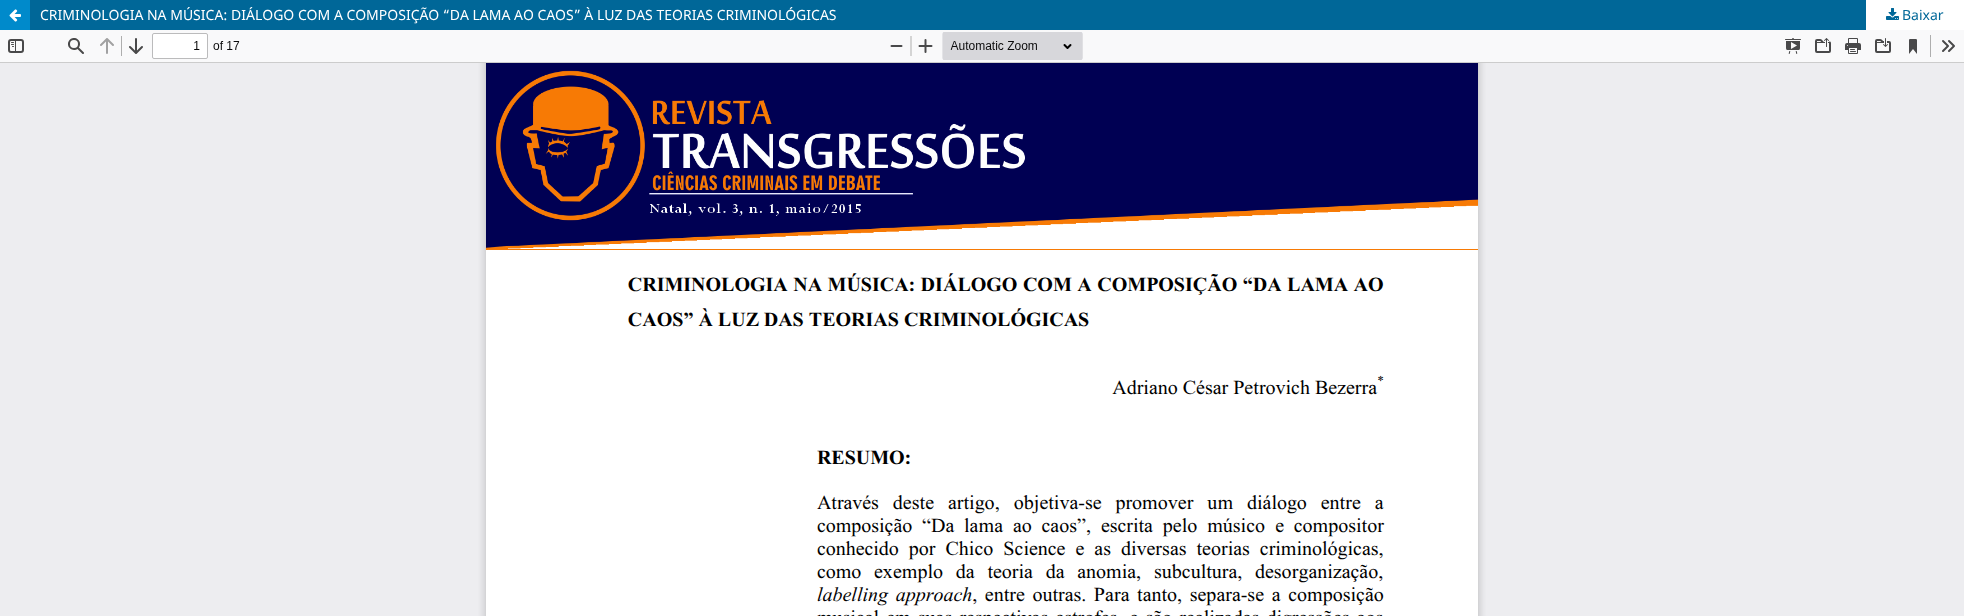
async function draw(canvas) {
  canvas.width = 1964;
  canvas.height = 616;
  const ctx = canvas.getContext('2d');
  ctx.miterLimit = 4;
  ctx.fontKerning = 'normal';
  function label(s, x, y, font, color) {
    ctx.font = font;
    ctx.fillStyle = color;
    ctx.fillText(s, x, y);
  }
  function rect(x, y, w, h, color) {
    ctx.fillStyle = color;
    ctx.fillRect(x, y, w, h);
  }
  async function image(src, x, y, w, h) {
    const img = new Image();
    img.src = src;
    await img.decode();
    ctx.drawImage(img, x, y, w, h);
  }

  rect(0, 0, 1964, 616, '#fff');
  rect(30, 0, 1836, 30, '#006798');
  rect(0, 0, 30, 30, '#008acb');
  await image('assets/img1.png', 9, 9, 12, 13);
  label('CRIMINOLOGIA NA MÚSICA: DIÁLOGO COM A COMPOSIÇÃO “DA LAMA AO CAOS” À LUZ DAS TEORIAS CRIMINOLÓGICAS', 40, 20, '14px Noto Sans', '#fff');
  await image('assets/img2.png', 1886, 8, 13, 12);
  label('Baixar', 1902, 20, '14px Noto Sans', '#006798');
  await image('assets/img3.png', 0, 30, 1964, 586);
}

draw(document.querySelector('canvas'));
